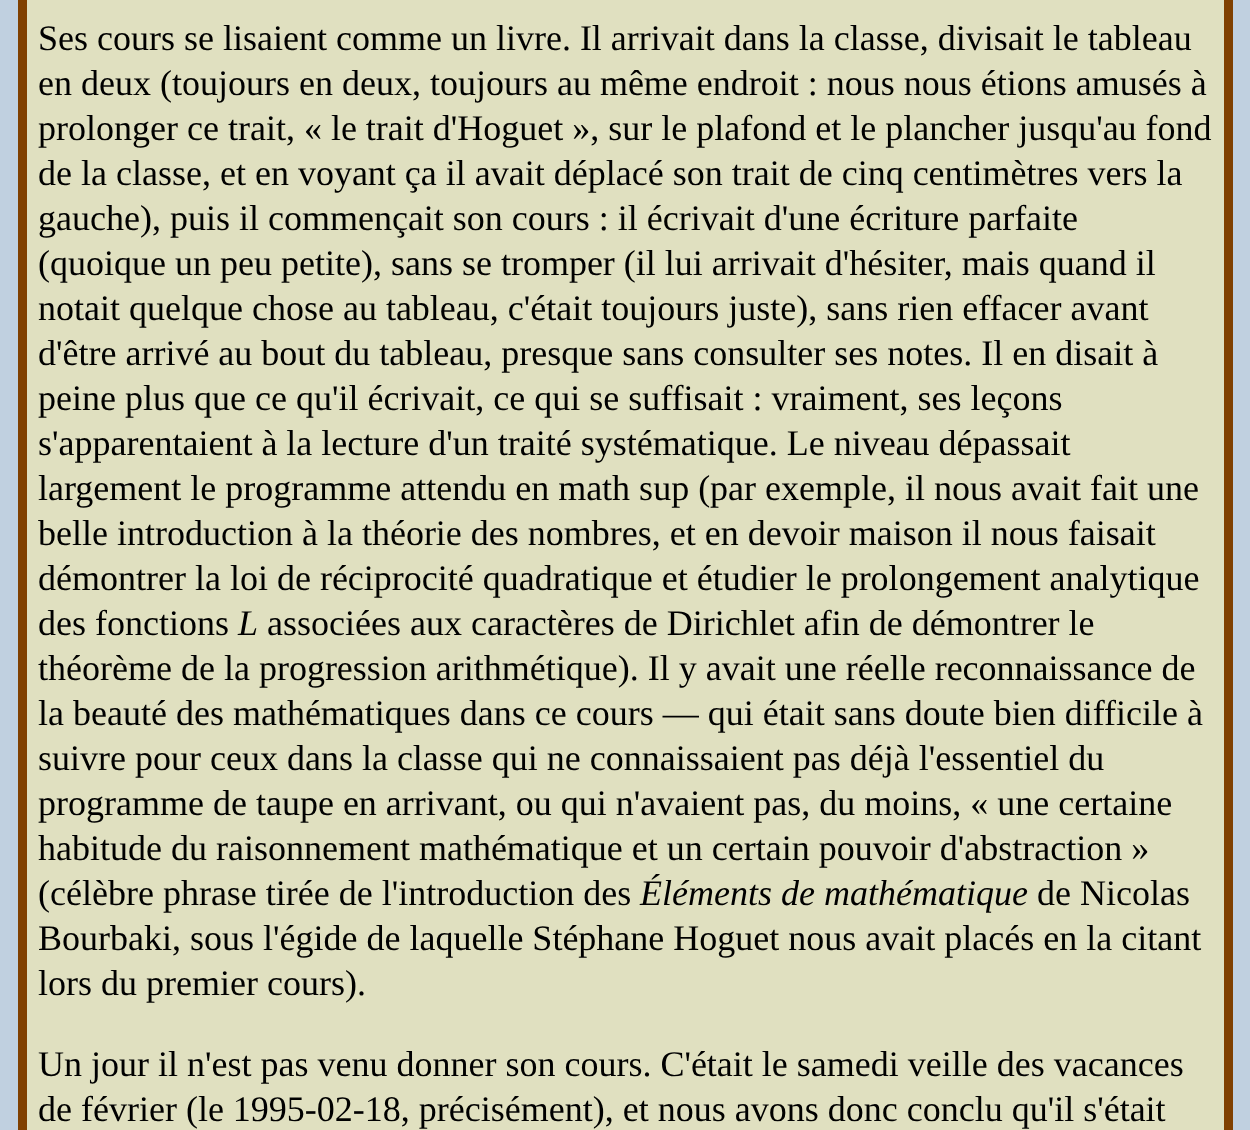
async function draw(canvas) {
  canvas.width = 1250;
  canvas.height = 1130;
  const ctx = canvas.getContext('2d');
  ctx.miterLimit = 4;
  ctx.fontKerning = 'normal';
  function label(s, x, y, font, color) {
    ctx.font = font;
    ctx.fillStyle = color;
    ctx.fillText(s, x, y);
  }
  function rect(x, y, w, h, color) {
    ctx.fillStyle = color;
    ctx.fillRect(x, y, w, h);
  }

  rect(0, 0, 1250, 1130, '#c0d0e0');
  ctx.fillStyle = '#e0e0c0';
  ctx.beginPath();
  ctx.rect(22.5, -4.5, 1206, 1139);
  ctx.fill();
  ctx.strokeStyle = '#804000';
  ctx.lineWidth = 9;
  ctx.stroke();
  label('Ses cours se lisaient comme un livre. Il arrivait dans la classe, divisait le tableau', 38, 50, '36px Liberation Serif', '#000');
  label('en deux (toujours en deux, toujours au même endroit : nous nous étions amusés à', 38, 95, '36px Liberation Serif', '#000');
  label('prolonger ce trait, « le trait d\'Hoguet », sur le plafond et le plancher jusqu\'au fond', 38, 140, '36px Liberation Serif', '#000');
  label('de la classe, et en voyant ça il avait déplacé son trait de cinq centimètres vers la', 38, 185, '36px Liberation Serif', '#000');
  label('gauche), puis il commençait son cours : il écrivait d\'une écriture parfaite', 38, 230, '36px Liberation Serif', '#000');
  label('(quoique un peu petite), sans se tromper (il lui arrivait d\'hésiter, mais quand il', 38, 275, '36px Liberation Serif', '#000');
  label('notait quelque chose au tableau, c\'était toujours juste), sans rien effacer avant', 38, 320, '36px Liberation Serif', '#000');
  label('d\'être arrivé au bout du tableau, presque sans consulter ses notes. Il en disait à', 38, 365, '36px Liberation Serif', '#000');
  label('peine plus que ce qu\'il écrivait, ce qui se suffisait : vraiment, ses leçons', 38, 410, '36px Liberation Serif', '#000');
  label('s\'apparentaient à la lecture d\'un traité systématique. Le niveau dépassait', 38, 455, '36px Liberation Serif', '#000');
  label('largement le programme attendu en math sup (par exemple, il nous avait fait une', 38, 500, '36px Liberation Serif', '#000');
  label('belle introduction à la théorie des nombres, et en devoir maison il nous faisait', 38, 545, '36px Liberation Serif', '#000');
  label('démontrer la loi de réciprocité quadratique et étudier le prolongement analytique', 38, 590, '36px Liberation Serif', '#000');
  label('des fonctions', 38, 635, '36px Liberation Serif', '#000');
  label('L', 238, 635, 'italic 36px Liberation Serif', '#000');
  label('associées aux caractères de Dirichlet afin de démontrer le', 267, 635, '36px Liberation Serif', '#000');
  label('théorème de la progression arithmétique). Il y avait une réelle reconnaissance de', 38, 680, '36px Liberation Serif', '#000');
  label('la beauté des mathématiques dans ce cours — qui était sans doute bien difficile à', 38, 725, '36px Liberation Serif', '#000');
  label('suivre pour ceux dans la classe qui ne connaissaient pas déjà l\'essentiel du', 38, 770, '36px Liberation Serif', '#000');
  label('programme de taupe en arrivant, ou qui n\'avaient pas, du moins, « une certaine', 38, 815, '36px Liberation Serif', '#000');
  label('habitude du raisonnement mathématique et un certain pouvoir d\'abstraction »', 38, 860, '36px Liberation Serif', '#000');
  label('(célèbre phrase tirée de l\'introduction des', 38, 905, '36px Liberation Serif', '#000');
  label('Éléments de mathématique', 640, 905, 'italic 36px Liberation Serif', '#000');
  label('de Nicolas', 1037, 905, '36px Liberation Serif', '#000');
  label('Bourbaki, sous l\'égide de laquelle Stéphane Hoguet nous avait placés en la citant', 38, 950, '36px Liberation Serif', '#000');
  label('lors du premier cours).', 38, 995, '36px Liberation Serif', '#000');
  label('Un jour il n\'est pas venu donner son cours. C\'était le samedi veille des vacances', 38, 1076, '36px Liberation Serif', '#000');
  label('de février (le 1995-02-18, précisément), et nous avons donc conclu qu\'il s\'était', 38, 1121, '36px Liberation Serif', '#000');
}

draw(document.querySelector('canvas'));
